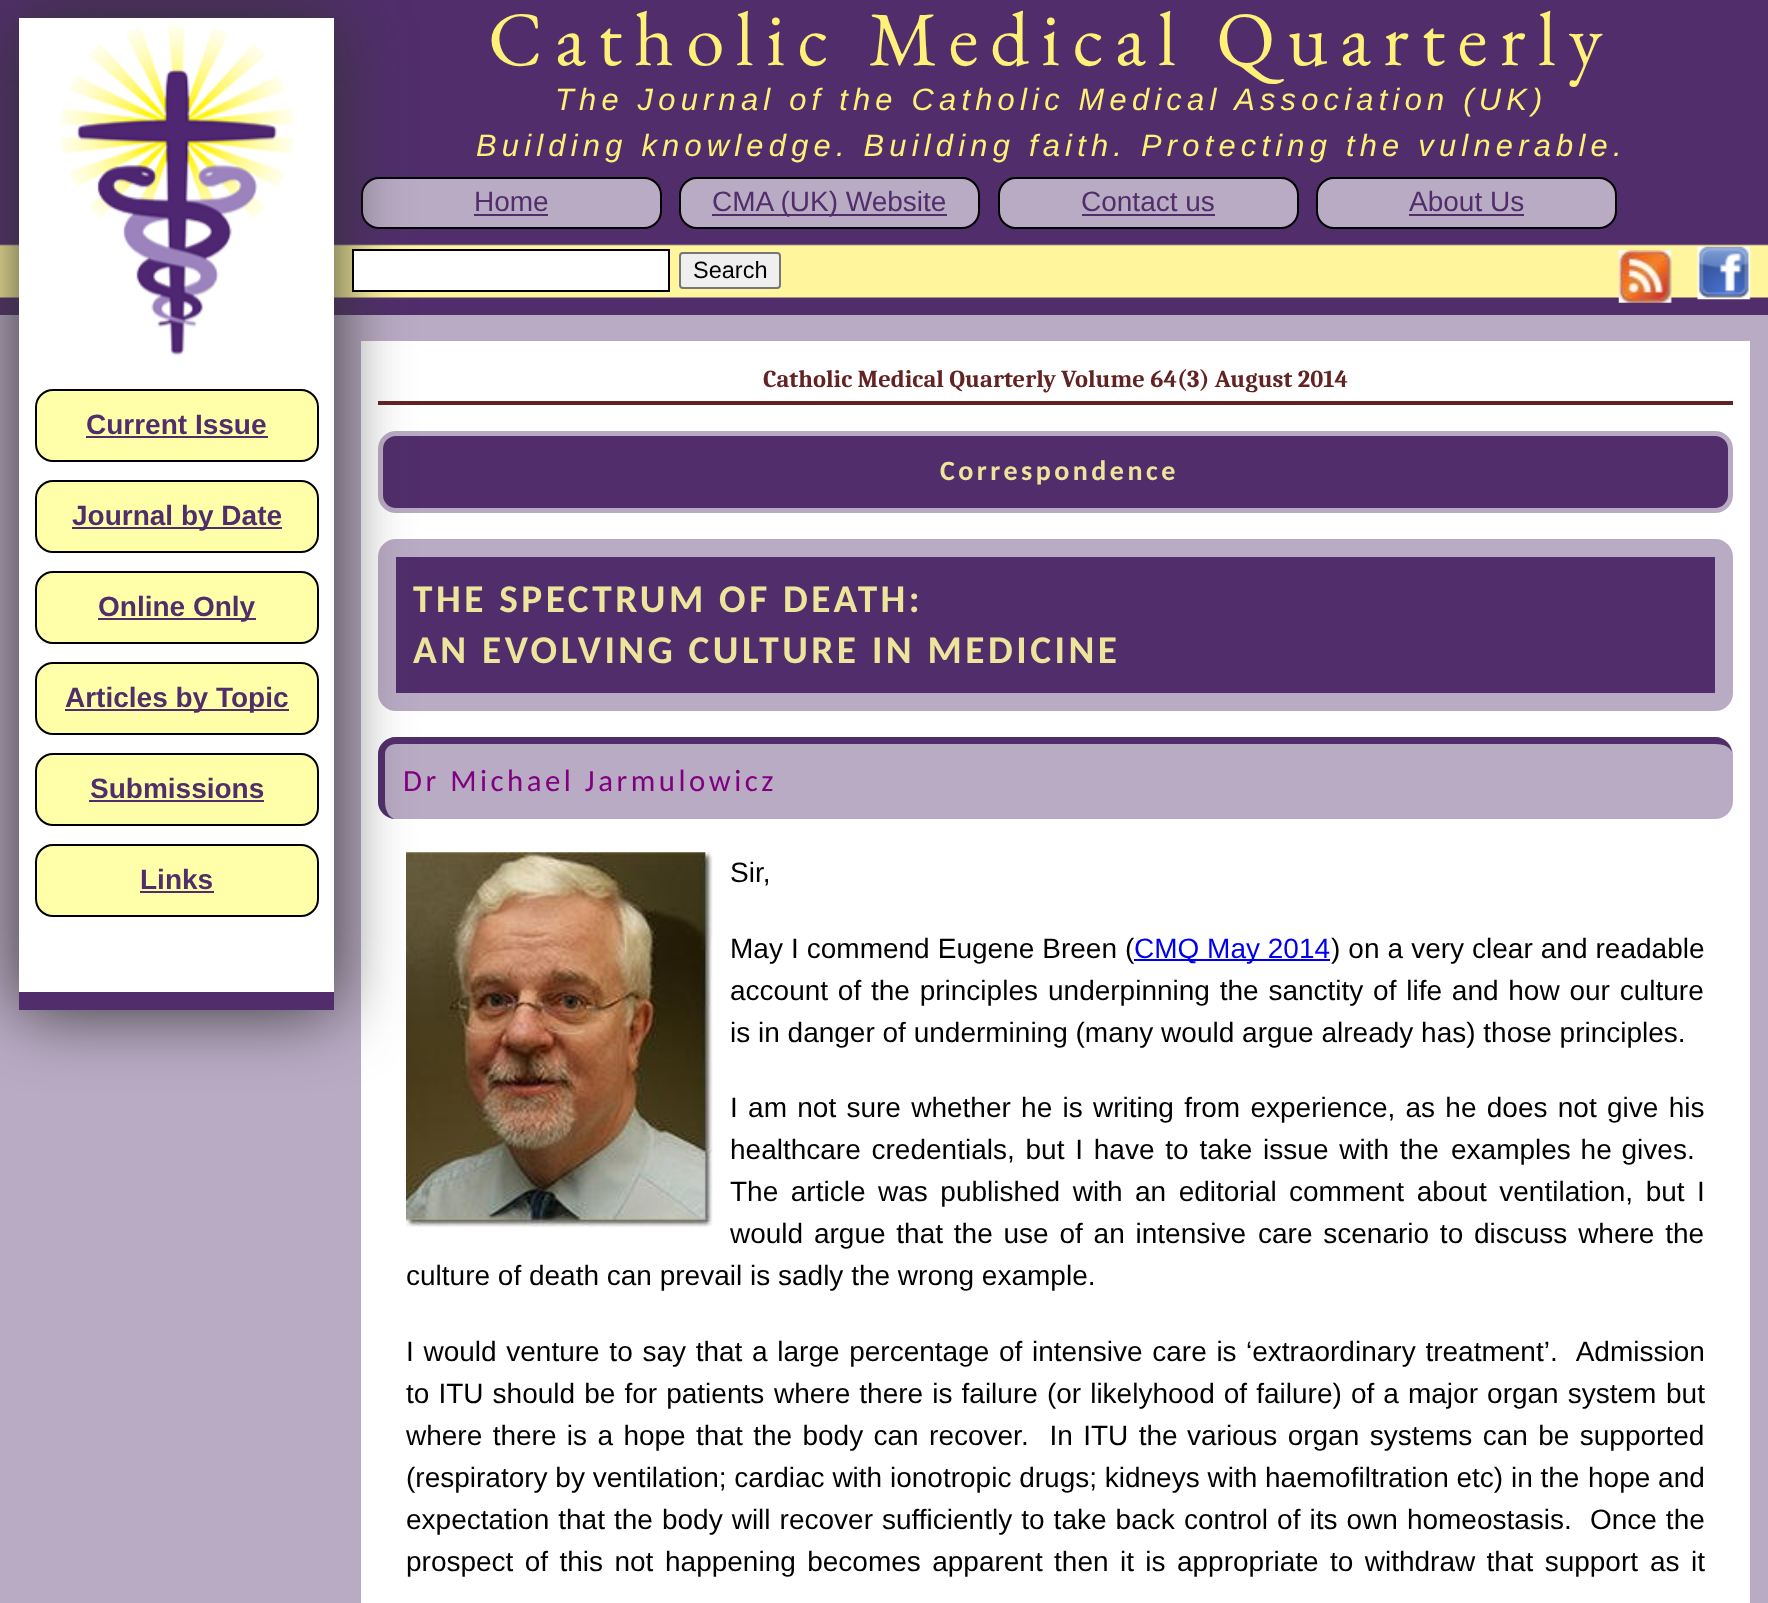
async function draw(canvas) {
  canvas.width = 1768;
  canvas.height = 1603;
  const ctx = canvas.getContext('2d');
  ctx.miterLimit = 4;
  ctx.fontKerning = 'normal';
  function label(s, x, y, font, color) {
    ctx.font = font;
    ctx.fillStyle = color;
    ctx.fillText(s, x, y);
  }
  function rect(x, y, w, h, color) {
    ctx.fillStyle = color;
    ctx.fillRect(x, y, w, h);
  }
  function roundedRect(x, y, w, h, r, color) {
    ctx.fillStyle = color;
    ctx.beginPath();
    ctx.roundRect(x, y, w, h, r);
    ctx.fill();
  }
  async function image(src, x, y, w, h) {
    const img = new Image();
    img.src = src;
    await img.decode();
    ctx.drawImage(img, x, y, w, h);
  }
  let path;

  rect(0, 0, 1768, 1603, '#b9abc4');
  rect(0, 0, 1768, 315, '#512e6b');
  await image('assets/img1.png', 0, 244, 1768, 54);
  ctx.letterSpacing = '12.25px';
  label('Catholic Medical Quarterly', 488, 65, '77px EB Garamond', '#fff177');
  ctx.letterSpacing = '5.25px';
  label('The Journal of the Catholic Medical Association (UK)', 555, 110, 'italic 30.8px Liberation Sans', '#fff177');
  label('Building knowledge. Building faith. Protecting the vulnerable.', 476, 156, 'italic 30.8px Liberation Sans', '#fff177');
  ctx.fillStyle = '#b9abc4';
  ctx.beginPath();
  ctx.roundRect(362, 178, 299, 50, 17);
  ctx.fill();
  ctx.strokeStyle = '#000';
  ctx.lineWidth = 2;
  ctx.stroke();
  ctx.letterSpacing = '0px';
  label('Home', 474, 211, '28px Liberation Sans', '#512d6b');
  rect(474, 214, 74, 2, '#512d6b');
  ctx.fillStyle = '#b9abc4';
  ctx.beginPath();
  ctx.roundRect(680, 178, 299, 50, 17);
  ctx.fill();
  ctx.stroke();
  rect(712, 214, 235, 2, '#512d6b');
  label('CMA (UK) Website', 712, 211, '28px Liberation Sans', '#512d6b');
  ctx.fillStyle = '#b9abc4';
  ctx.beginPath();
  ctx.roundRect(999, 178, 299, 50, 17);
  ctx.fill();
  ctx.stroke();
  label('Contact us', 1081, 211, '28px Liberation Sans', '#512d6b');
  rect(1082, 214, 133, 2, '#512d6b');
  ctx.fillStyle = '#b9abc4';
  ctx.beginPath();
  ctx.roundRect(1317, 178, 299, 50, 17);
  ctx.fill();
  ctx.stroke();
  label('About Us', 1409, 211, '28px Liberation Sans', '#512d6b');
  rect(1409, 214, 115, 2, '#512d6b');
  rect(361, 341, 1389, 1262, '#fff');
  rect(378, 401, 1355, 4, '#622423');
  ctx.fillStyle = '#512e6b';
  ctx.beginPath();
  ctx.roundRect(380.5, 433.5, 1350, 77, 15.5);
  ctx.fill();
  ctx.strokeStyle = '#b9abc4';
  ctx.lineWidth = 5;
  ctx.stroke();
  ctx.beginPath();
  ctx.roundRect(387, 548, 1337, 154, 9);
  ctx.fill();
  ctx.lineWidth = 18;
  ctx.stroke();
  roundedRect(378, 737, 1355, 82, 18, '#b9abc4');
  ctx.fillStyle = '#512e6b';
  path = new Path2D('M396 737H1715C1725 737 1732 745 1732 754V802C1732 811 1725 819 1715 819H396C386 819 378 811 378 802V754C378 745 386 737 396 737ZM396 744H1715C1725 744 1732 748 1732 754V802C1732 811 1725 819 1715 819H396C390 819 385 811 385 802V754C385 748 390 744 396 744Z');
  ctx.fill(path, 'evenodd');
  await image('assets/img5.png', 406, 852, 307, 375);
  ctx.fillStyle = '#333';
  ctx.filter = 'blur(35px)';
  ctx.beginPath();
  ctx.rect(19, 18, 315, 992);
  ctx.fill();
  ctx.filter = 'none';
  ctx.fillStyle = '#fff';
  ctx.beginPath();
  ctx.rect(353, 250, 316, 41);
  ctx.fill();
  ctx.strokeStyle = '#000';
  ctx.lineWidth = 2;
  ctx.stroke();
  ctx.fillStyle = '#efefef';
  ctx.beginPath();
  ctx.roundRect(680, 253, 100, 35, 3);
  ctx.fill();
  ctx.strokeStyle = '#767676';
  ctx.stroke();
  label('Search', 693, 278, '23.5px Liberation Sans', '#000');
  await image('assets/img2.png', 1618, 250, 54, 53);
  await image('assets/img3.png', 1696, 246, 55, 54);
  rect(19, 18, 315, 974, '#fff');
  rect(19, 992, 315, 18, '#512e6b');
  await image('assets/img4.png', 60, 24, 234, 332);
  ctx.fillStyle = '#ffa';
  ctx.beginPath();
  ctx.roundRect(36, 390, 282, 71, 17);
  ctx.fill();
  ctx.strokeStyle = '#000';
  ctx.stroke();
  label('Current Issue', 86, 434, 'bold 28px Liberation Sans', '#512d6b');
  rect(86, 436, 182, 2, '#512d6b');
  ctx.fillStyle = '#ffa';
  ctx.beginPath();
  ctx.roundRect(36, 481, 282, 71, 17);
  ctx.fill();
  ctx.stroke();
  rect(72, 527, 210, 2, '#512d6b');
  label('Journal by Date', 72, 525, 'bold 28px Liberation Sans', '#512d6b');
  ctx.fillStyle = '#ffa';
  ctx.beginPath();
  ctx.roundRect(36, 572, 282, 71, 17);
  ctx.fill();
  ctx.stroke();
  rect(98, 618, 158, 2, '#512d6b');
  label('Online Only', 98, 616, 'bold 28px Liberation Sans', '#512d6b');
  ctx.fillStyle = '#ffa';
  ctx.beginPath();
  ctx.roundRect(36, 663, 282, 71, 17);
  ctx.fill();
  ctx.stroke();
  rect(65, 709, 224, 2, '#512d6b');
  label('Articles by Topic', 65, 707, 'bold 28px Liberation Sans', '#512d6b');
  ctx.fillStyle = '#ffa';
  ctx.beginPath();
  ctx.roundRect(36, 754, 282, 71, 17);
  ctx.fill();
  ctx.stroke();
  label('Submissions', 90, 798, 'bold 28px Liberation Sans', '#512d6b');
  rect(89, 800, 175, 2, '#512d6b');
  ctx.fillStyle = '#ffa';
  ctx.beginPath();
  ctx.roundRect(36, 845, 282, 71, 17);
  ctx.fill();
  ctx.stroke();
  label('Links', 140, 889, 'bold 28px Liberation Sans', '#512d6b');
  rect(140, 891, 74, 2, '#512d6b');
  label('Catholic Medical Quarterly Volume 64(3) August 2014', 763, 387, 'bold 24.5px Caladea', '#622423');
  ctx.letterSpacing = '3.5px';
  label('Correspondence', 940, 480, 'bold 28px Carlito', '#eee59c');
  label('THE SPECTRUM OF DEATH:', 413, 612, 'bold 39.25px Carlito', '#eee59c');
  label('AN EVOLVING CULTURE IN MEDICINE', 413, 663, 'bold 39.25px Carlito', '#eee59c');
  label('Dr Michael Jarmulowicz', 403, 791, '30.8px Carlito', '#800080');
  ctx.letterSpacing = '0px';
  label('Sir,', 730, 882, '28px Liberation Sans', '#000');
  ctx.wordSpacing = '0.25px';
  label('May I commend Eugene Breen (', 730, 958, '28px Liberation Sans', '#000');
  rect(1134, 959, 196, 2, '#00e');
  ctx.wordSpacing = '0px';
  label('CMQ May 2014', 1134, 958, '28px Liberation Sans', '#00e');
  ctx.wordSpacing = '0.25px';
  label(') on a very clear and readable', 1331, 958, '28px Liberation Sans', '#000');
  ctx.wordSpacing = '2px';
  label('account of the principles', 730, 1000, '28px Liberation Sans', '#000');
  label('underpinning the sanctity of life and how our culture', 1048, 1000, '28px Liberation Sans', '#000');
  ctx.wordSpacing = '0px';
  label('is in danger of undermining (many would argue already has) those principles.', 730, 1042, '28px Liberation Sans', '#000');
  ctx.wordSpacing = '2.5px';
  label('I am not sure whether he is writing from experience, as he does not', 730, 1117, '28px Liberation Sans', '#000');
  label('give his', 1607, 1117, '28px Liberation Sans', '#000');
  ctx.wordSpacing = '3px';
  label('healthcare credentials, but I have to take issue with the', 730, 1159, '28px Liberation Sans', '#000');
  ctx.wordSpacing = '2px';
  label('examples he gives.', 1451, 1159, '28px Liberation Sans', '#000');
  ctx.wordSpacing = '4.75px';
  label('The article was published with an editorial', 730, 1201, '28px Liberation Sans', '#000');
  label('comment about ventilation, but I', 1289, 1201, '28px Liberation Sans', '#000');
  ctx.wordSpacing = '3px';
  label('would argue that the use of an intensive', 730, 1243, '28px Liberation Sans', '#000');
  label('care scenario to discuss where the', 1258, 1243, '28px Liberation Sans', '#000');
  ctx.wordSpacing = '0px';
  label('culture of death can prevail is sadly the wrong example.', 406, 1285, '28px Liberation Sans', '#000');
  ctx.wordSpacing = '1.9px';
  label('I would venture to say that a large percentage of intensive care is', 406, 1361, '28px Liberation Sans', '#000');
  ctx.wordSpacing = '2px';
  label('‘extraordinary treatment’.  Admission', 1246, 1361, '28px Liberation Sans', '#000');
  ctx.wordSpacing = '1.3px';
  label('to ITU should be for patients', 406, 1403, '28px Liberation Sans', '#000');
  label('where there is failure (or likelyhood of failure) of a major organ system', 774, 1403, '28px Liberation Sans', '#000');
  ctx.wordSpacing = '0px';
  label('but', 1666, 1403, '28px Liberation Sans', '#000');
  ctx.wordSpacing = '2.6px';
  label('where there is a hope that the body can recover.  In ITU the', 406, 1445, '28px Liberation Sans', '#000');
  label('various organ systems can be supported', 1187, 1445, '28px Liberation Sans', '#000');
  ctx.wordSpacing = '0px';
  label('(respiratory by ventilation; cardiac with ionotropic drugs; kidneys with haemofiltration etc) in the', 406, 1487, '28px Liberation Sans', '#000');
  label('hope and', 1588, 1487, '28px Liberation Sans', '#000');
  ctx.wordSpacing = '1.25px';
  label('expectation that the body will recover sufficiently to take back', 406, 1529, '28px Liberation Sans', '#000');
  label('control of its own homeostasis.  Once the', 1184, 1529, '28px Liberation Sans', '#000');
  ctx.wordSpacing = '3.6px';
  label('prospect of this not', 406, 1571, '28px Liberation Sans', '#000');
  label('happening becomes apparent then it is appropriate to withdraw that support', 665, 1571, '28px Liberation Sans', '#000');
  label('as it', 1650, 1571, '28px Liberation Sans', '#000');
}

draw(document.querySelector('canvas'));
